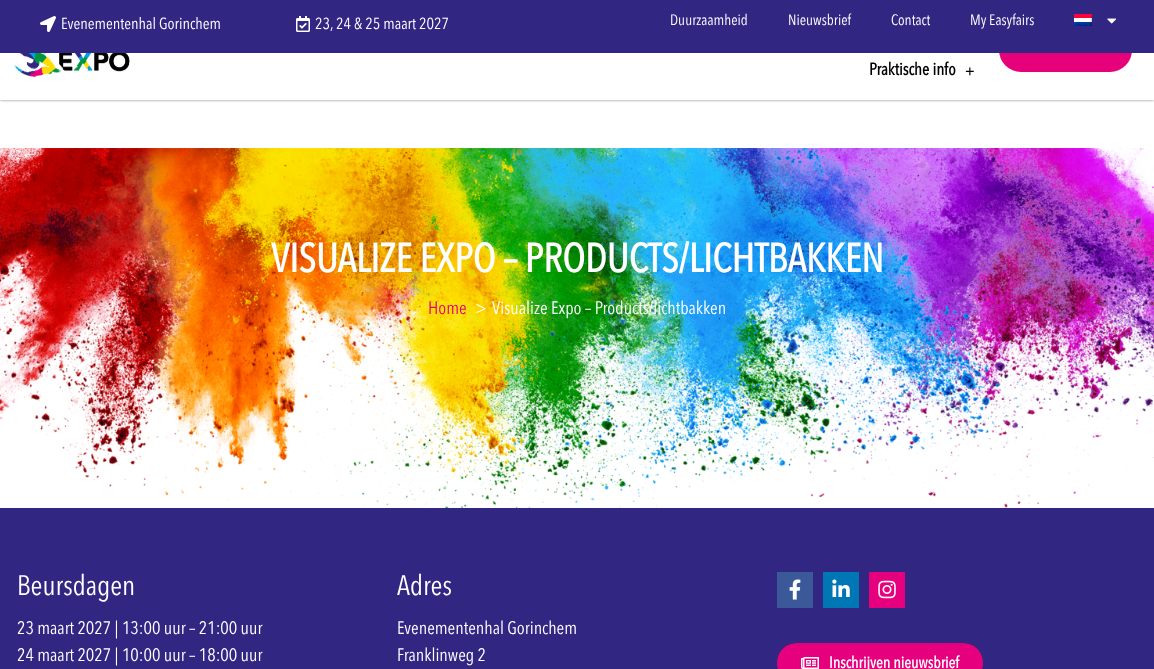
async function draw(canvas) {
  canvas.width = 1154;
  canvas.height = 669;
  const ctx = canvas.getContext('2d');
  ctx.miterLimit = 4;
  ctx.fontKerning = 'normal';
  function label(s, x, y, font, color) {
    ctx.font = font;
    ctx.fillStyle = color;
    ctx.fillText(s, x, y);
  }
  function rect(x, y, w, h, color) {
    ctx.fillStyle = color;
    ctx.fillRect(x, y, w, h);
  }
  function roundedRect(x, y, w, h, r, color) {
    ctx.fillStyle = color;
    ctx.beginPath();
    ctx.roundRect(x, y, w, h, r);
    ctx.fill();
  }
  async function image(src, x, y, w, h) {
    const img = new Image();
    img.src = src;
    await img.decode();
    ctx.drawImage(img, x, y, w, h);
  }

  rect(0, 0, 1154, 669, '#fff');
  ctx.save();
  ctx.beginPath();
  ctx.rect(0, 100, 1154, 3);
  ctx.clip();
  ctx.fillStyle = '#00000080';
  ctx.filter = 'blur(1.5px)';
  ctx.beginPath();
  ctx.rect(0, 0, 1154, 100);
  ctx.fill();
  ctx.filter = 'none';
  ctx.restore();
  roundedRect(999, 28, 133, 44, 22, '#e6007a');
  rect(0, 0, 1154, 53, '#312783');
  await image('assets/img1.png', 40, 16, 16, 16);
  label('Evenementenhal Gorinchem', 61, 29, '16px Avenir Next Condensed', '#fff');
  await image('assets/img2.png', 296, 16, 14, 16);
  label('23, 24 & 25 maart 2027', 315, 29, '16px Avenir Next Condensed', '#fff');
  label('Duurzaamheid', 670, 25, '15px Avenir Next Condensed', '#fff');
  label('Nieuwsbrief', 788, 25, '15px Avenir Next Condensed', '#fff');
  label('Contact', 891, 25, '15px Avenir Next Condensed', '#fff');
  label('My Easyfairs', 970, 25, '15px Avenir Next Condensed', '#fff');
  await image('assets/img3.png', 1074, 14, 18, 12);
  await image('assets/img4.png', 1107, 18, 9, 6);
  await image('assets/img5.png', 14, 53, 116, 24);
  label('Praktische info', 869, 75, 'bold 17px Avenir Next Condensed', '#000');
  label('+', 965, 77, 'bold 17px Liberation Serif', '#000');
  await image('assets/img6.png', 0, 148, 1154, 360);
  label('VISUALIZE EXPO – PRODUCTS/LICHTBAKKEN', 271, 272, 'bold 40px Avenir Next Condensed', '#fff');
  label('Home', 428, 314, '18px Avenir Next Condensed', '#e6007e');
  label('>', 475, 314, '18px Avenir Next Condensed', '#fff');
  label('Visualize Expo – Products/lichtbakken', 492, 314, '18px Avenir Next Condensed', '#fff');
  rect(0, 508, 1154, 161, '#312783');
  label('Beursdagen', 17, 595, '28px Avenir Next Condensed', '#fff');
  label('23 maart 2027 | 13:00 uur – 21:00 uur', 17, 634, '18px Avenir Next Condensed', '#fff');
  label('24 maart 2027 | 10:00 uur – 18:00 uur', 17, 661, '18px Avenir Next Condensed', '#fff');
  label('Adres', 397, 595, '28px Avenir Next Condensed', '#fff');
  label('Evenementenhal Gorinchem', 397, 634, '18px Avenir Next Condensed', '#fff');
  label('Franklinweg 2', 397, 661, '18px Avenir Next Condensed', '#fff');
  rect(777, 572, 36, 36, '#3b5998');
  await image('assets/img7.png', 789, 579, 12, 21);
  rect(823, 572, 36, 36, '#0077b5');
  await image('assets/img8.png', 832, 579, 18, 18);
  rect(869, 572, 36, 36, '#e6007e');
  await image('assets/img9.png', 878, 580, 18, 19);
  roundedRect(777, 643, 206, 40, 20, '#e6007e');
  await image('assets/img10.png', 801, 657, 18, 12);
  label('Inschrijven nieuwsbrief', 829, 668, 'bold 16px Avenir Next Condensed', '#fff');
}

draw(document.querySelector('canvas'));
